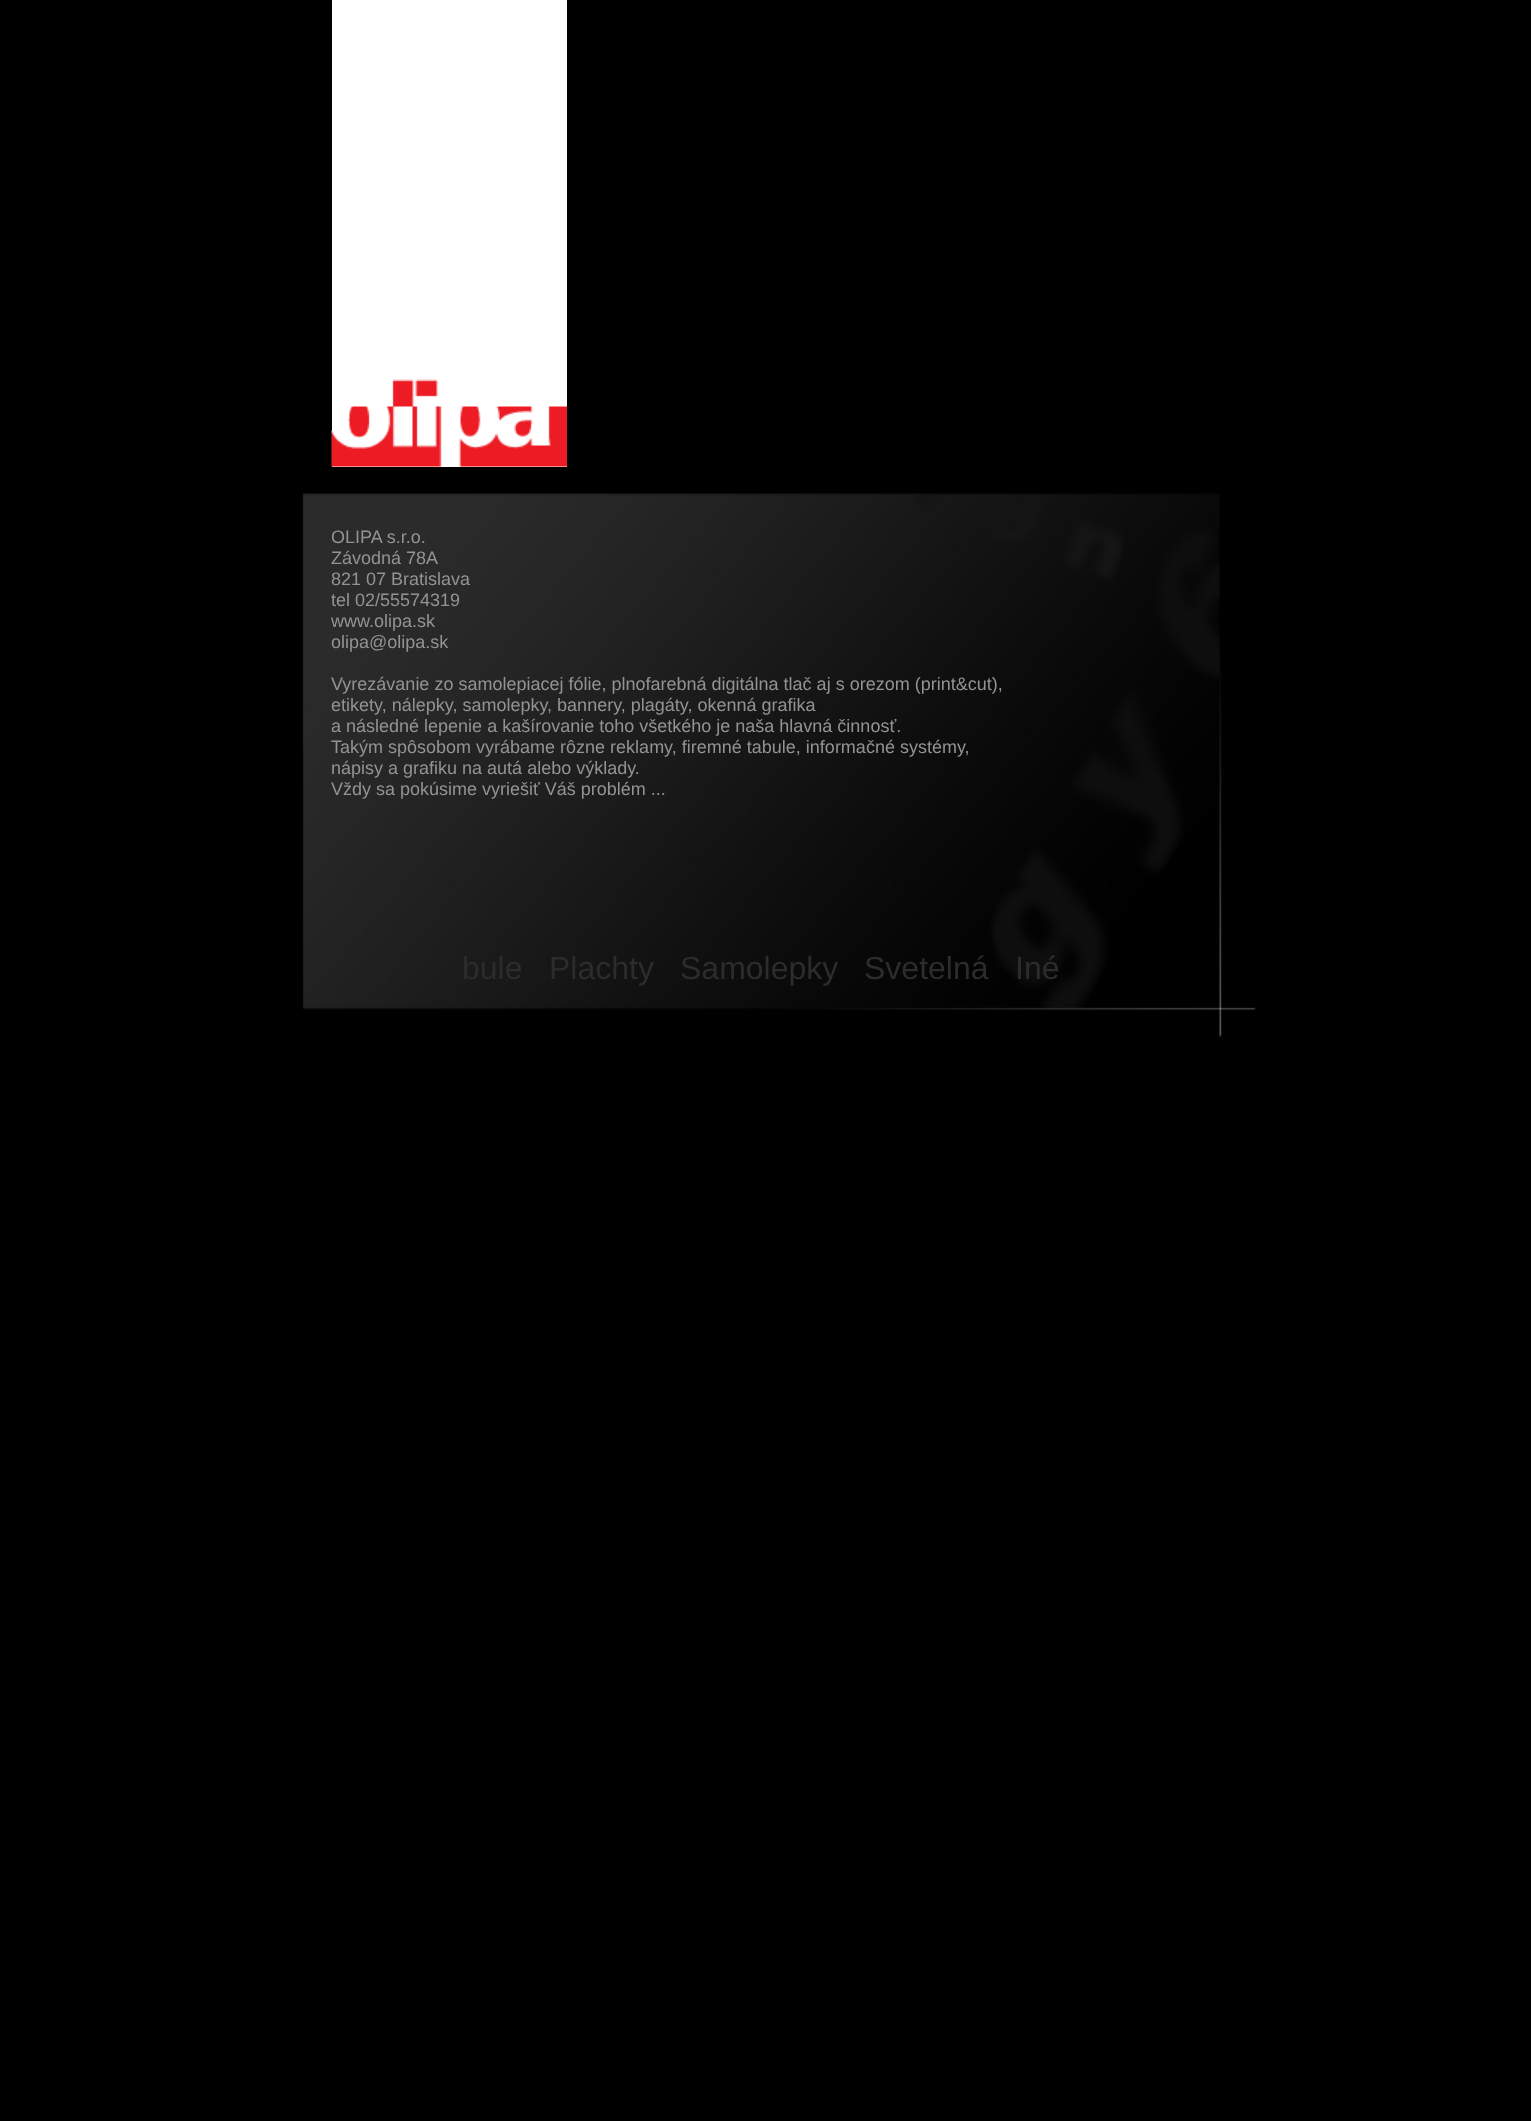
async function draw(canvas) {
  canvas.width = 1531;
  canvas.height = 2121;
  const ctx = canvas.getContext('2d');
  ctx.miterLimit = 4;
  ctx.fontKerning = 'normal';
  function label(s, x, y, font, color) {
    ctx.font = font;
    ctx.fillStyle = color;
    ctx.fillText(s, x, y);
  }
  function rect(x, y, w, h, color) {
    ctx.fillStyle = color;
    ctx.fillRect(x, y, w, h);
  }
  async function image(src, x, y, w, h) {
    const img = new Image();
    img.src = src;
    await img.decode();
    ctx.drawImage(img, x, y, w, h);
  }

  rect(0, 0, 1531, 2121, '#000');
  rect(332, 0, 235, 380, '#fff');
  await image('assets/img2.png', 302, 466, 954, 571);
  rect(332, 380, 235, 87, '#fff');
  await image('assets/img1.png', 331, 379, 236, 88);
  label('OLIPA s.r.o.', 331, 543, '18px Liberation Sans', '#939393');
  label('Závodná 78A', 331, 564, '18px Liberation Sans', '#939393');
  label('821 07 Bratislava', 331, 585, '18px Liberation Sans', '#939393');
  label('tel 02/55574319', 331, 606, '18px Liberation Sans', '#939393');
  label('www.olipa.sk', 331, 627, '18px Liberation Sans', '#939393');
  label('olipa@olipa.sk', 331, 648, '18px Liberation Sans', '#939393');
  label('Vyrezávanie zo samolepiacej fólie, plnofarebná digitálna tlač aj s orezom (print&cut),', 331, 690, '18px Liberation Sans', '#939393');
  label('etikety, nálepky, samolepky, bannery, plagáty, okenná grafika', 331, 711, '18px Liberation Sans', '#939393');
  label('a následné lepenie a kašírovanie toho všetkého je naša hlavná činnosť.', 331, 732, '18px Liberation Sans', '#939393');
  label('Takým spôsobom vyrábame rôzne reklamy, firemné tabule, informačné systémy,', 331, 753, '18px Liberation Sans', '#939393');
  label('nápisy a grafiku na autá alebo výklady.', 331, 774, '18px Liberation Sans', '#939393');
  label('Vždy sa pokúsime vyriešiť Váš problém ...', 331, 795, '18px Liberation Sans', '#939393');
  label('bule', 462, 979, '32px Liberation Sans', '#2c2c2c');
  label('Plachty', 549, 979, '32px Liberation Sans', '#2c2c2c');
  label('Samolepky', 680, 979, '32px Liberation Sans', '#2c2c2c');
  label('Svetelná', 864, 979, '32px Liberation Sans', '#2c2c2c');
  label('Iné', 1015, 979, '32px Liberation Sans', '#2c2c2c');
}

draw(document.querySelector('canvas'));
